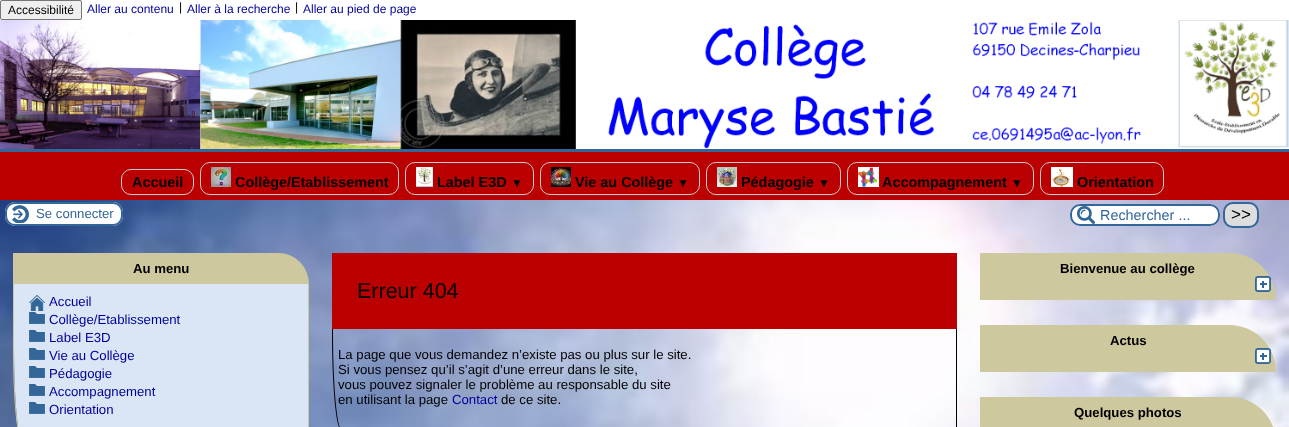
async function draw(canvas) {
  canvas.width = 1289;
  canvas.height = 427;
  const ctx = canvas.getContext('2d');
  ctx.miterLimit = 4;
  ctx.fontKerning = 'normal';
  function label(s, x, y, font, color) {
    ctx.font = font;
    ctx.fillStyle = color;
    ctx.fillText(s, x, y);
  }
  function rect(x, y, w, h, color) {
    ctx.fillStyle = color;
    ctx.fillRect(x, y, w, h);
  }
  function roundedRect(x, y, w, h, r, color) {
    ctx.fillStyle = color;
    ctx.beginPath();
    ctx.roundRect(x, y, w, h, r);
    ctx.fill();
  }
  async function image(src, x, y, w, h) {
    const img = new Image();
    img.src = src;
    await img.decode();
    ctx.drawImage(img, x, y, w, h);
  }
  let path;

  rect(0, 0, 1289, 427, '#fff');
  await image('assets/img1.png', 0, 200, 1289, 227);
  rect(0, 149, 1289, 3, '#369');
  ctx.fillStyle = '#efefef';
  ctx.beginPath();
  ctx.roundRect(0.5, 0.5, 81, 19, 1.5);
  ctx.fill();
  ctx.strokeStyle = '#767676';
  ctx.stroke();
  label('Accessibilité', 8, 14, '12px Liberation Sans', '#000');
  label('Aller au contenu', 87, 13, '12px Liberation Sans', '#009');
  label('|', 179, 11, '12px Liberation Sans', '#000');
  label('Aller à la recherche', 187, 13, '12px Liberation Sans', '#009');
  label('|', 295, 11, '12px Liberation Sans', '#000');
  label('Aller au pied de page', 303, 13, '12px Liberation Sans', '#009');
  await image('assets/img2.png', 0, 20, 1289, 129);
  rect(0, 152, 1289, 48, '#ba0000');
  ctx.beginPath();
  ctx.roundRect(121.5, 169.5, 72, 25, 9.5);
  ctx.strokeStyle = '#ccc';
  ctx.stroke();
  label('Accueil', 132, 187, 'bold 14.4px Liberation Sans', '#000');
  ctx.beginPath();
  ctx.roundRect(200.5, 162.5, 198, 32, 9.5);
  ctx.stroke();
  await image('assets/img3.png', 211, 167, 20, 20);
  label('Collège/Etablissement', 235, 187, 'bold 14.4px Liberation Sans', '#000');
  ctx.beginPath();
  ctx.roundRect(405.5, 162.5, 128, 32, 9.5);
  ctx.stroke();
  await image('assets/img4.png', 416, 167, 17, 20);
  label('Label E3D', 437, 187, 'bold 14.4px Liberation Sans', '#000');
  label('▼', 511, 187, 'bold 12px Liberation Sans', '#000');
  ctx.beginPath();
  ctx.roundRect(540.5, 162.5, 159, 32, 9.5);
  ctx.stroke();
  await image('assets/img5.png', 551, 167, 20, 20);
  label('Vie au Collège', 575, 187, 'bold 14.4px Liberation Sans', '#000');
  label('▼', 677, 187, 'bold 12px Liberation Sans', '#000');
  ctx.beginPath();
  ctx.roundRect(706.5, 162.5, 134, 32, 9.5);
  ctx.stroke();
  await image('assets/img6.png', 717, 167, 20, 20);
  label('Pédagogie', 741, 187, 'bold 14.4px Liberation Sans', '#000');
  label('▼', 818, 187, 'bold 12px Liberation Sans', '#000');
  ctx.beginPath();
  ctx.roundRect(847.5, 162.5, 186, 32, 9.5);
  ctx.stroke();
  await image('assets/img7.png', 858, 167, 21, 20);
  label('Accompagnement', 882, 187, 'bold 14.4px Liberation Sans', '#000');
  label('▼', 1011, 187, 'bold 12px Liberation Sans', '#000');
  ctx.beginPath();
  ctx.roundRect(1040.5, 162.5, 123, 32, 9.5);
  ctx.stroke();
  await image('assets/img8.png', 1051, 167, 22, 20);
  label('Orientation', 1077, 187, 'bold 14.4px Liberation Sans', '#000');
  roundedRect(5, 202, 118, 24, 10, '#fff');
  await image('assets/img9.png', 12, 205, 17, 18);
  ctx.beginPath();
  ctx.roundRect(6, 203, 116, 22, 9);
  ctx.strokeStyle = '#369';
  ctx.lineWidth = 2;
  ctx.stroke();
  label('Se connecter', 36, 218, '13.2px Liberation Sans', '#369');
  roundedRect(1070, 204, 150, 22, 10, '#fff');
  await image('assets/img10.png', 1077, 206, 18, 18);
  ctx.beginPath();
  ctx.roundRect(1071, 205, 148, 20, 9);
  ctx.stroke();
  label('Rechercher ...', 1100, 220, '14.4px Liberation Sans', '#369');
  ctx.fillStyle = '#ddd';
  ctx.beginPath();
  ctx.roundRect(1224, 203, 34, 24, 9);
  ctx.fill();
  ctx.stroke();
  label('>>', 1231, 220, '17px Liberation Sans', '#000');
  ctx.fillStyle = '#cec89f';
  ctx.beginPath();
  ctx.roundRect(13, 253, 296, 31, [0, 31, 0, 0]);
  ctx.fill();
  label('Au menu', 133, 273, 'bold 13.2px Liberation Sans', '#000');
  ctx.fillStyle = '#dae6f6';
  path = new Path2D('M14 284H308V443H23C18 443 14 399 14 344Z');
  ctx.fill(path);
  ctx.fillStyle = '#cec89f';
  path = new Path2D('M13 284H309V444H23C17 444 13 399 13 344ZM14 284H308V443H23C18 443 14 399 14 344Z');
  ctx.fill(path, 'evenodd');
  await image('assets/img11.png', 29, 295, 16, 16);
  label('Accueil', 49, 306, '13.2px Liberation Sans', '#009');
  await image('assets/img12.png', 29, 312, 16, 12);
  label('Collège/Etablissement', 49, 324, '13.2px Liberation Sans', '#009');
  await image('assets/img12.png', 29, 330, 16, 12);
  label('Label E3D', 49, 342, '13.2px Liberation Sans', '#009');
  await image('assets/img12.png', 29, 348, 16, 12);
  label('Vie au Collège', 49, 360, '13.2px Liberation Sans', '#009');
  await image('assets/img12.png', 29, 366, 16, 12);
  label('Pédagogie', 49, 378, '13.2px Liberation Sans', '#009');
  await image('assets/img12.png', 29, 384, 16, 12);
  label('Accompagnement', 49, 396, '13.2px Liberation Sans', '#009');
  await image('assets/img12.png', 29, 402, 16, 12);
  label('Orientation', 49, 414, '13.2px Liberation Sans', '#009');
  rect(332, 253, 625, 76, '#ba0000');
  label('Erreur 404', 357, 298, '21.5px Liberation Sans', '#000');
  path = new Path2D('M332 329H957V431H342C336 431 332 386 332 331ZM333 329H956V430H342C337 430 333 386 333 331Z');
  ctx.fill(path, 'evenodd');
  label('La page que vous demandez n’existe pas ou plus sur le site.', 338, 359, '13.2px Liberation Sans', '#000');
  label('Si vous pensez qu’il s’agit d’une erreur dans le site,', 338, 374, '13.2px Liberation Sans', '#000');
  label('vous pouvez signaler le problème au responsable du site', 338, 389, '13.2px Liberation Sans', '#000');
  label('en utilisant la page', 338, 404, '13.2px Liberation Sans', '#000');
  label('Contact', 452, 404, '13.2px Liberation Sans', '#009');
  label('de ce site.', 501, 404, '13.2px Liberation Sans', '#000');
  ctx.fillStyle = '#cec89f';
  ctx.beginPath();
  ctx.roundRect(980, 253, 296, 47, [0, 47, 0, 0]);
  ctx.fill();
  label('Bienvenue au collège', 1060, 273, 'bold 13.2px Liberation Sans', '#000');
  await image('assets/img13.png', 1255, 276, 16, 16);
  ctx.fillStyle = '#cec89f';
  ctx.beginPath();
  ctx.roundRect(980, 325, 296, 47, [0, 47, 0, 0]);
  ctx.fill();
  label('Actus', 1110, 345, 'bold 13.2px Liberation Sans', '#000');
  await image('assets/img14.png', 1255, 348, 16, 16);
  ctx.fillStyle = '#cec89f';
  path = new Path2D('M980 397H1230C1255.5 397 1276 417.5 1276 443H980Z');
  ctx.fill(path);
  label('Quelques photos', 1074, 417, 'bold 13.2px Liberation Sans', '#000');
}

draw(document.querySelector('canvas'));
